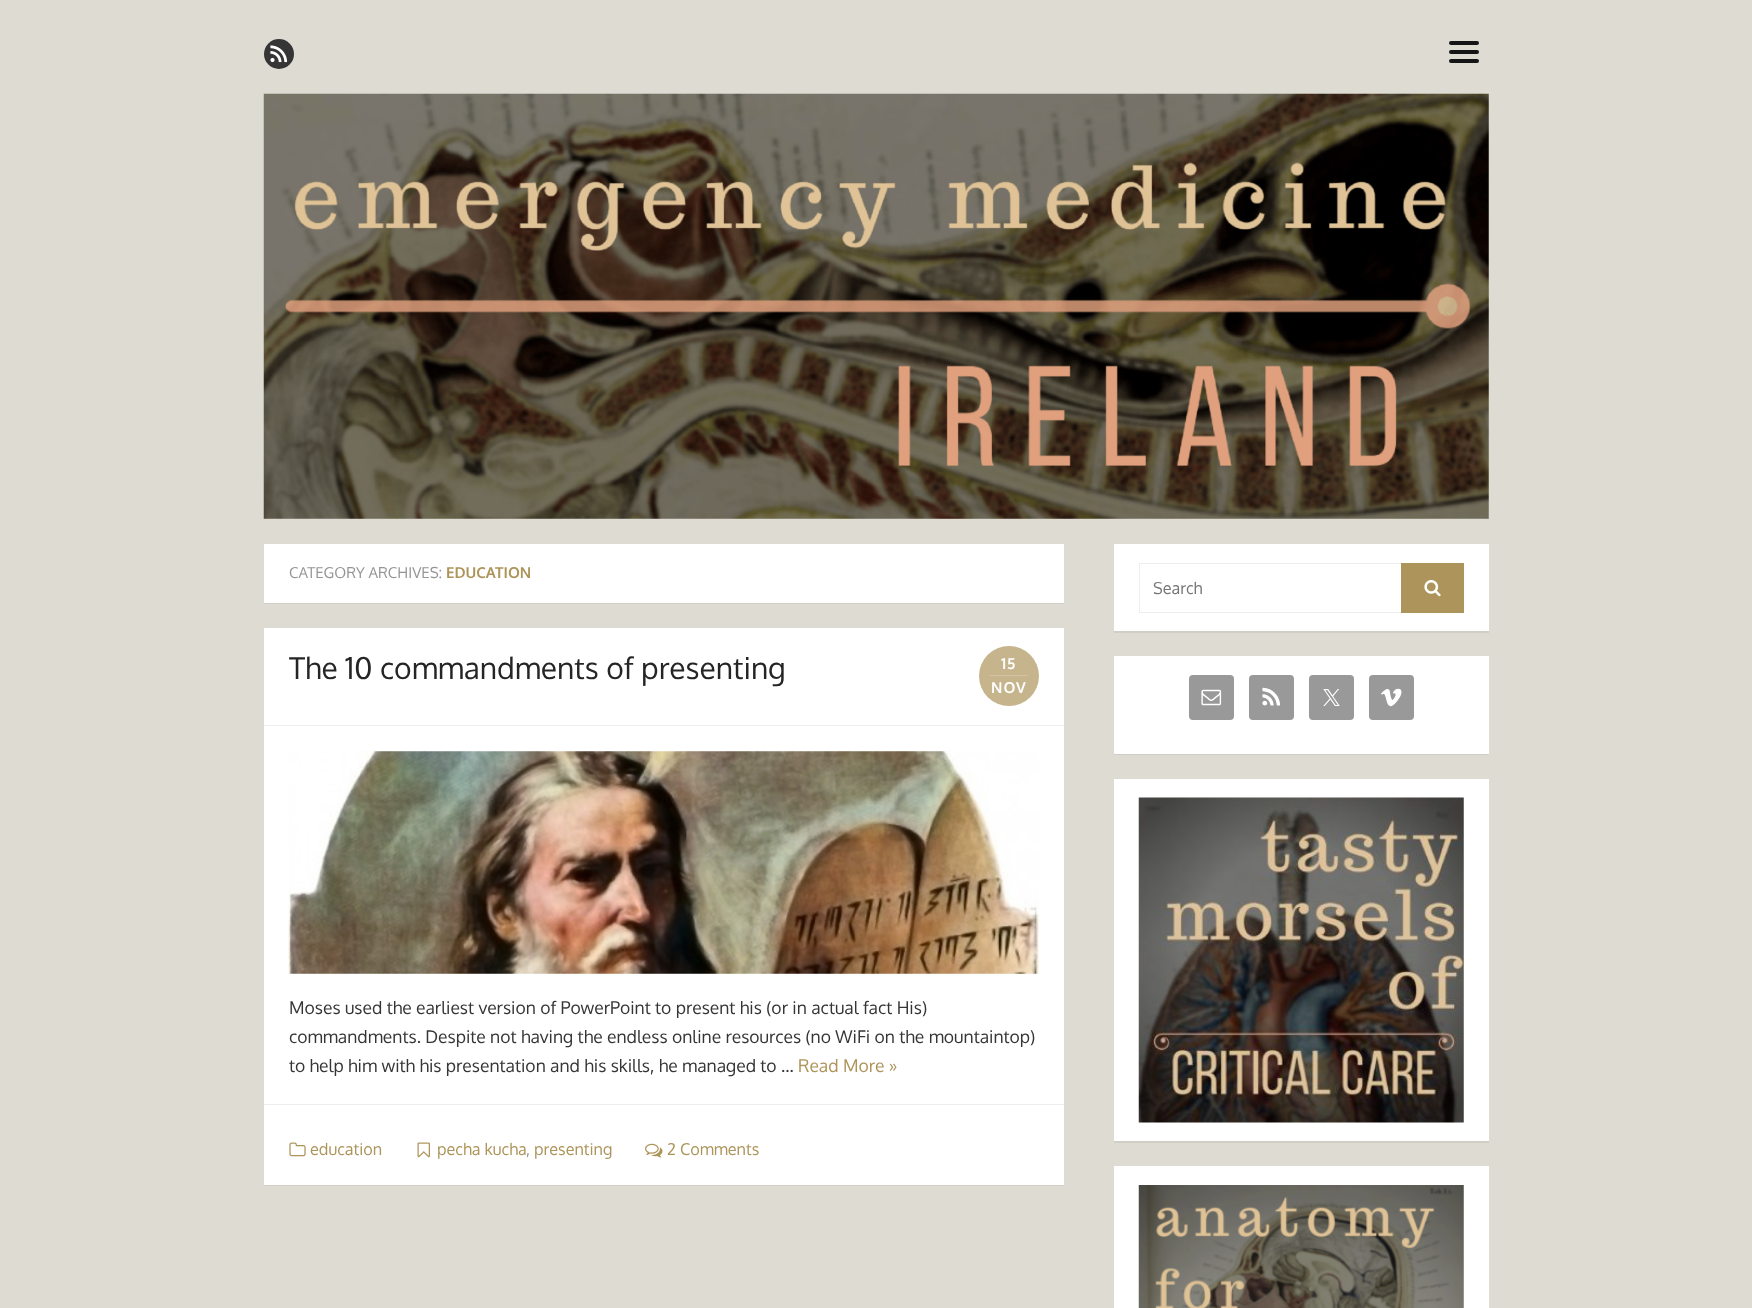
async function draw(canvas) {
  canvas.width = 1752;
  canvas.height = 1308;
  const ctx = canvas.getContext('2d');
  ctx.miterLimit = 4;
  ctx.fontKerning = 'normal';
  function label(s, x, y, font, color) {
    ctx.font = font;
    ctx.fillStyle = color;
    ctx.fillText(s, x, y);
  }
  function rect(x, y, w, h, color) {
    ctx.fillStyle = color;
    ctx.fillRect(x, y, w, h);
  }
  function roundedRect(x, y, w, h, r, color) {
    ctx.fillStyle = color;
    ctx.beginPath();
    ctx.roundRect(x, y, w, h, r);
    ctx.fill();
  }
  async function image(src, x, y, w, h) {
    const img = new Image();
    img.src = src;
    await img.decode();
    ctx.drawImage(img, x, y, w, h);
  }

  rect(0, 0, 1752, 1308, '#dddbd2');
  ctx.fillStyle = '#353535';
  ctx.beginPath();
  ctx.arc(279, 54, 15, 0, 2 * Math.PI);
  ctx.fill();
  await image('assets/img1.png', 270, 45, 18, 18);
  roundedRect(1449, 50, 30, 4, 2, '#151515');
  roundedRect(1449, 41, 30, 4, 2, '#151515');
  roundedRect(1449, 59, 30, 4, 2, '#151515');
  await image('assets/img2.png', 263, 93, 1226, 426);
  ctx.fillStyle = '#0000000f';
  ctx.filter = 'blur(0.5px)';
  ctx.beginPath();
  ctx.rect(264, 545, 800, 59);
  ctx.fill();
  ctx.filter = 'none';
  rect(264, 544, 800, 59, '#fff');
  label('CATEGORY ARCHIVES:', 289, 578, '15px Oxygen', '#959595');
  label('EDUCATION', 446, 578, 'bold 15px Oxygen', '#ad945a');
  ctx.fillStyle = '#0000000f';
  ctx.filter = 'blur(0.5px)';
  ctx.beginPath();
  ctx.rect(264, 629, 800, 557);
  ctx.fill();
  ctx.filter = 'none';
  rect(264, 628, 800, 557, '#fff');
  rect(264, 725, 800, 1, '#ededed');
  label('The 10 commandments of presenting', 289, 679, '30px Oxygen', '#252525');
  ctx.fillStyle = '#c6b48c';
  ctx.beginPath();
  ctx.arc(1009, 676, 30, 0, 2 * Math.PI);
  ctx.fill();
  ctx.letterSpacing = '1px';
  label('15', 1001, 669, 'bold 15px Oxygen', '#fff');
  rect(990, 675, 38, 1, '#d1c3a3');
  label('NOV', 991, 693, 'bold 15px Oxygen', '#fff');
  await image('assets/img3.png', 288, 751, 751, 223);
  ctx.letterSpacing = '0px';
  label('Moses used the earliest version of PowerPoint to present his (or in actual fact His)', 289, 1014, '17.5px Oxygen', '#353535');
  label('commandments. Despite not having the endless online resources (no WiFi on the mountaintop)', 289, 1043, '17.5px Oxygen', '#353535');
  label('to help him with his presentation and his skills, he managed to …', 289, 1072, '17.5px Oxygen', '#353535');
  label('Read More »', 798, 1072, '17.5px Oxygen', '#ad945a');
  rect(264, 1104, 800, 1, '#ededed');
  await image('assets/img4.png', 289, 1142, 17, 15);
  label('education', 310, 1155, '16.25px Oxygen', '#ad945a');
  await image('assets/img5.png', 417, 1142, 13, 16);
  label('pecha kucha', 437, 1155, '16.25px Oxygen', '#ad945a');
  label(',', 526, 1155, '16.25px Oxygen', '#959595');
  label('presenting', 534, 1155, '16.25px Oxygen', '#ad945a');
  await image('assets/img6.png', 645, 1143, 18, 15);
  label('2 Comments', 667, 1155, '16.25px Oxygen', '#ad945a');
  ctx.fillStyle = '#0000000f';
  ctx.filter = 'blur(0.5px)';
  ctx.beginPath();
  ctx.rect(1114, 545, 375, 88);
  ctx.fill();
  ctx.filter = 'none';
  rect(1114, 544, 375, 87, '#fff');
  ctx.strokeStyle = '#eee';
  ctx.strokeRect(1139.5, 563.5, 324, 49);
  label('Search', 1153, 594, '16.25px Oxygen', '#757575');
  rect(1401, 563, 63, 50, '#ad945a');
  await image('assets/img7.png', 1424, 580, 17, 17);
  ctx.fillStyle = '#0000000f';
  ctx.filter = 'blur(0.5px)';
  ctx.beginPath();
  ctx.rect(1114, 658, 375, 97);
  ctx.fill();
  ctx.filter = 'none';
  rect(1114, 656, 375, 98, '#fff');
  roundedRect(1189, 675, 45, 45, 4, '#999');
  await image('assets/img8.png', 1201, 689, 21, 17);
  roundedRect(1249, 675, 45, 45, 4, '#999');
  await image('assets/img9.png', 1262, 687, 18, 19);
  roundedRect(1309, 675, 45, 45, 4, '#999');
  await image('assets/img10.png', 1323, 689, 17, 17);
  roundedRect(1369, 675, 45, 45, 4, '#999');
  await image('assets/img11.png', 1381, 688, 21, 19);
  ctx.fillStyle = '#0000000f';
  ctx.filter = 'blur(0.5px)';
  ctx.beginPath();
  ctx.rect(1114, 780, 375, 363);
  ctx.fill();
  ctx.filter = 'none';
  rect(1114, 779, 375, 362, '#fff');
  await image('assets/img12.png', 1138, 797, 326, 326);
  rect(1114, 1166, 375, 142, '#fff');
  await image('assets/img13.png', 1138, 1185, 326, 123);
}

draw(document.querySelector('canvas'));
